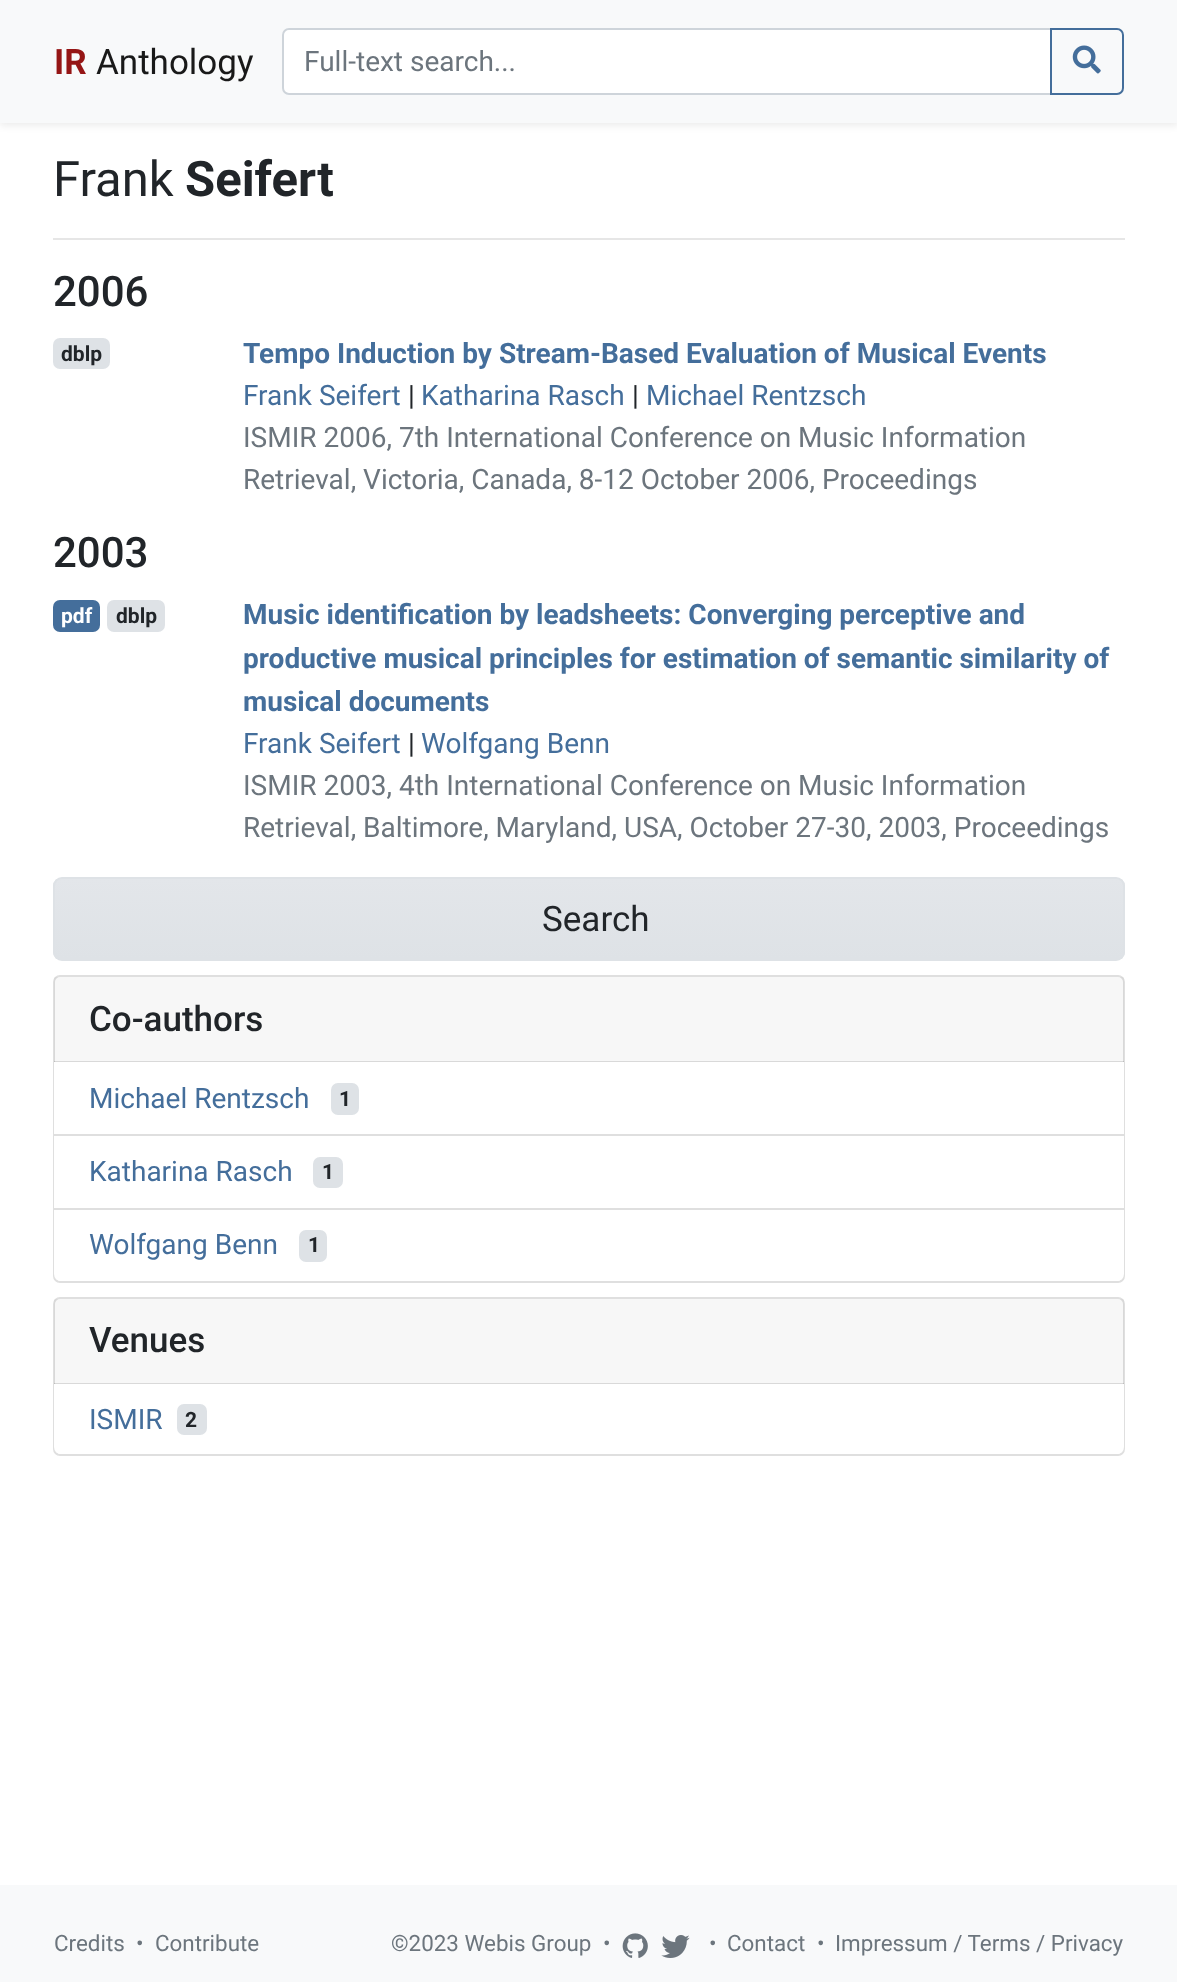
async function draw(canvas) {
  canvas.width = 1177;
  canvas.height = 1982;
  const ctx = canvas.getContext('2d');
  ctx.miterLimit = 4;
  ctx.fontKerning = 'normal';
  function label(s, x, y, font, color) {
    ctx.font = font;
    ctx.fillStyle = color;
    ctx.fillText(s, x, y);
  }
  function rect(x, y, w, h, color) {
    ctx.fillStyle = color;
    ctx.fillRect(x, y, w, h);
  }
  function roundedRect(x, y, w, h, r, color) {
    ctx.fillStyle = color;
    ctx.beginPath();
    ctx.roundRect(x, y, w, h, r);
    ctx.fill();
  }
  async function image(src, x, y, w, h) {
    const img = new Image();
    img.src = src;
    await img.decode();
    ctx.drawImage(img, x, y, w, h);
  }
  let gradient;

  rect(0, 0, 1177, 1982, '#fff');
  ctx.fillStyle = '#00000012';
  ctx.filter = 'blur(3.5px)';
  ctx.beginPath();
  ctx.rect(0, 4, 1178, 122);
  ctx.fill();
  ctx.filter = 'none';
  rect(0, 0, 1177, 123, '#f8f9fa');
  label('IR', 54, 74, 'bold 35px Roboto', '#951515');
  label('Anthology', 96, 74, '35px Roboto', '#191919');
  ctx.fillStyle = '#fff';
  ctx.beginPath();
  ctx.roundRect(283, 29, 768, 65, [6, 0, 0, 6]);
  ctx.fill();
  ctx.strokeStyle = '#ced4da';
  ctx.lineWidth = 2;
  ctx.stroke();
  label('Full-text search...', 304, 71, '28px Roboto', '#6c757d');
  ctx.beginPath();
  ctx.roundRect(1051, 29, 72, 65, [0, 6, 6, 0]);
  ctx.strokeStyle = '#446e9b';
  ctx.stroke();
  await image('assets/img1.png', 1072, 45, 29, 29);
  label('Frank', 53, 196, '49px Roboto', '#212529');
  label('Seifert', 185, 196, 'bold 49px Roboto', '#212529');
  rect(53, 238, 1072, 2, '#e6e6e6');
  label('2006', 53, 306, '500 42px Roboto', '#212529');
  roundedRect(53, 338, 57, 31, 7, '#dee2e6');
  label('dblp', 61, 361, 'bold 21px Roboto', '#212529');
  label('Tempo Induction by Stream-Based Evaluation of Musical Events', 243, 363, 'bold 28px Roboto', '#446e9b');
  label('Frank Seifert', 243, 405, '28px Roboto', '#446e9b');
  label('|', 408, 405, '28px Roboto', '#212529');
  label('Katharina Rasch', 421, 405, '28px Roboto', '#446e9b');
  label('|', 632, 405, '28px Roboto', '#212529');
  label('Michael Rentzsch', 646, 405, '28px Roboto', '#446e9b');
  label('ISMIR 2006, 7th International Conference on Music Information', 243, 447, '28px Roboto', '#6c757d');
  label('Retrieval, Victoria, Canada, 8-12 October 2006, Proceedings', 243, 489, '28px Roboto', '#6c757d');
  label('2003', 53, 567, '500 42px Roboto', '#212529');
  roundedRect(53, 600, 47, 32, 7, '#446e9b');
  label('pdf', 61, 623, 'bold 21px Roboto', '#fff');
  roundedRect(107, 600, 58, 32, 7, '#dee2e6');
  label('dblp', 116, 623, 'bold 21px Roboto', '#212529');
  label('Music identification by leadsheets: Converging perceptive and', 243, 624, 'bold 28px Roboto', '#446e9b');
  label('productive musical principles for estimation of semantic similarity of', 243, 668, 'bold 28px Roboto', '#446e9b');
  label('musical documents', 243, 711, 'bold 28px Roboto', '#446e9b');
  label('Frank Seifert', 243, 753, '28px Roboto', '#446e9b');
  label('|', 408, 753, '28px Roboto', '#212529');
  label('Wolfgang Benn', 421, 753, '28px Roboto', '#446e9b');
  label('ISMIR 2003, 4th International Conference on Music Information', 243, 795, '28px Roboto', '#6c757d');
  label('Retrieval, Baltimore, Maryland, USA, October 27-30, 2003, Proceedings', 243, 837, '28px Roboto', '#6c757d');
  ctx.save();
  ctx.beginPath();
  ctx.roundRect(53, 877, 1072, 84, 9);
  ctx.clip();
  gradient = ctx.createLinearGradient(589, 878, 589, 959);
  gradient.addColorStop(0, '#e3e6ea');
  gradient.addColorStop(1, '#dee2e6');
  ctx.fillStyle = gradient;
  ctx.fillRect(53, 879, 1072, 80);
  ctx.restore();
  ctx.beginPath();
  ctx.roundRect(54, 878, 1070, 82, 8);
  ctx.strokeStyle = '#dee2e6';
  ctx.stroke();
  label('Search', 542, 931, '35px Roboto', '#212529');
  ctx.beginPath();
  ctx.roundRect(54, 976, 1070, 306, 6);
  ctx.strokeStyle = '#dfdfdf';
  ctx.stroke();
  rect(54, 977, 1070, 85, '#00000008');
  rect(54, 1061, 1070, 1, '#0000001f');
  label('Co-authors', 89, 1031, '500 35px Roboto', '#212529');
  rect(54, 1062, 1070, 72, '#fff');
  label('Michael Rentzsch', 89, 1108, '28px Roboto', '#446e9b');
  roundedRect(331, 1083, 28, 32, 7, '#dee2e6');
  label('1', 339, 1106, 'bold 21px Roboto', '#212529');
  rect(54, 1136, 1070, 72, '#fff');
  rect(54, 1134, 1070, 2, '#dfdfdf');
  label('Katharina Rasch', 89, 1181, '28px Roboto', '#446e9b');
  roundedRect(313, 1157, 30, 31, 7, '#dee2e6');
  label('1', 322, 1179, 'bold 21px Roboto', '#212529');
  ctx.fillStyle = '#fff';
  ctx.beginPath();
  ctx.roundRect(54, 1208, 1070, 73, [0, 0, 7, 7]);
  ctx.fill();
  rect(54, 1208, 1070, 2, '#dfdfdf');
  label('Wolfgang Benn', 89, 1254, '28px Roboto', '#446e9b');
  roundedRect(299, 1230, 28, 32, 7, '#dee2e6');
  label('1', 308, 1252, 'bold 21px Roboto', '#212529');
  ctx.beginPath();
  ctx.roundRect(54, 1298, 1070, 157, 6);
  ctx.stroke();
  rect(54, 1299, 1070, 85, '#00000008');
  rect(54, 1383, 1070, 1, '#0000001f');
  label('Venues', 89, 1352, '500 35px Roboto', '#212529');
  ctx.fillStyle = '#fff';
  ctx.beginPath();
  ctx.roundRect(54, 1384, 1070, 70, [0, 0, 7, 7]);
  ctx.fill();
  label('ISMIR', 89, 1429, '28px Roboto', '#446e9b');
  roundedRect(177, 1404, 30, 31, 7, '#dee2e6');
  label('2', 185, 1427, 'bold 21px Roboto', '#212529');
  rect(0, 1885, 1177, 97, '#f8f9fa');
  label('Credits', 54, 1951, '22.4px Roboto', '#6c757d');
  label('•', 136, 1951, '22.4px Roboto', '#6c757d');
  label('Contribute', 155, 1951, '22.4px Roboto', '#6c757d');
  label('©2023 Webis Group', 391, 1951, '22.4px Roboto', '#6c757d');
  label('•', 603, 1951, '22.4px Roboto', '#6c757d');
  await image('assets/img2.png', 622, 1933, 26, 25);
  await image('assets/img3.png', 661, 1935, 29, 23);
  label('•', 709, 1951, '22.4px Roboto', '#6c757d');
  label('Contact', 727, 1951, '22.4px Roboto', '#6c757d');
  label('•', 817, 1951, '22.4px Roboto', '#6c757d');
  label('Impressum / Terms / Privacy', 835, 1951, '22.4px Roboto', '#6c757d');
}

draw(document.querySelector('canvas'));
